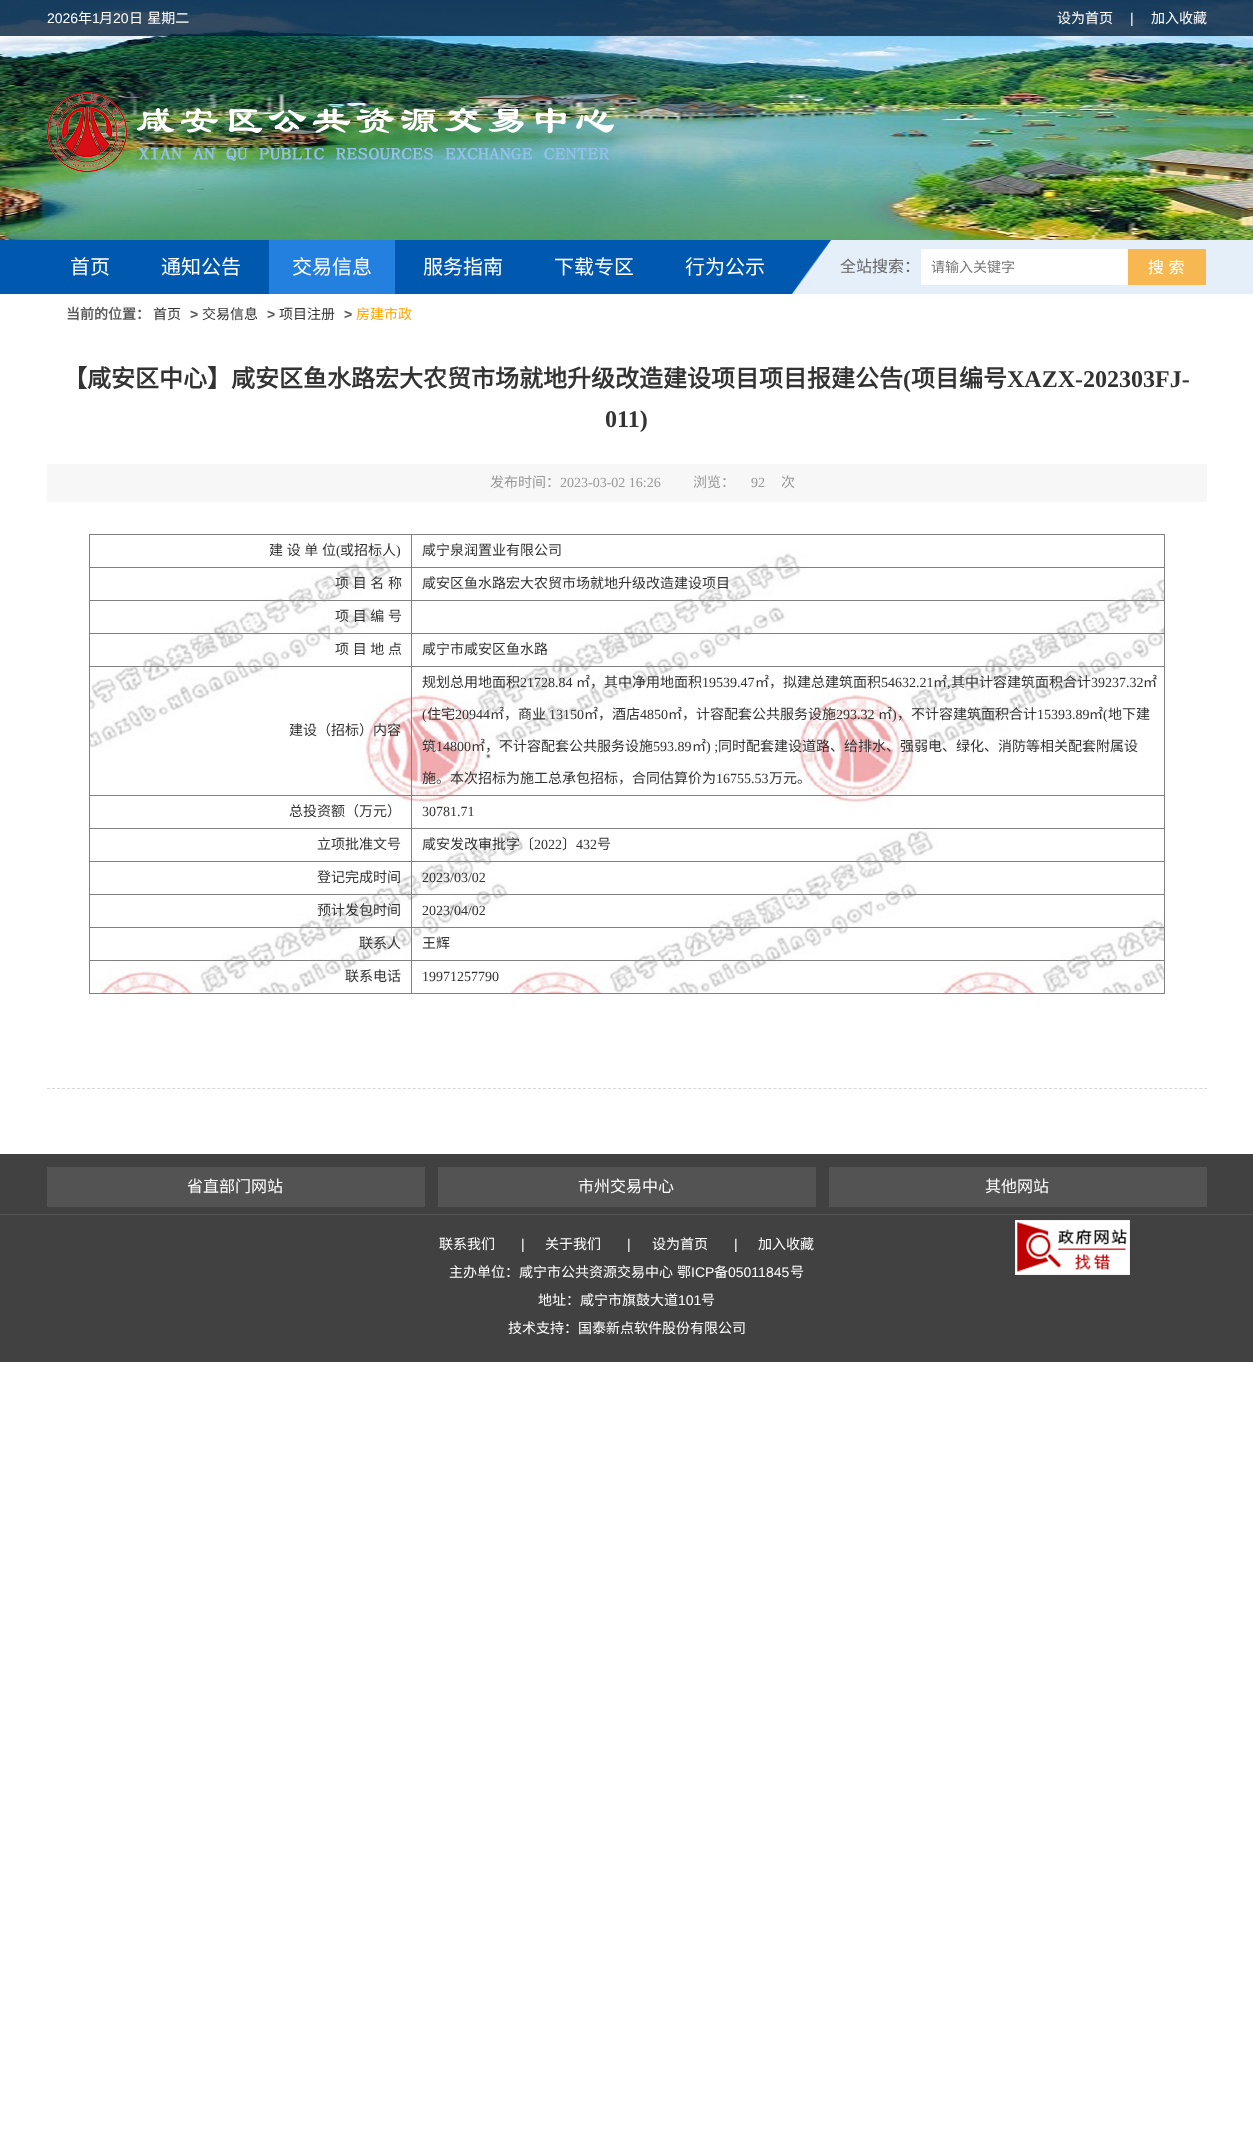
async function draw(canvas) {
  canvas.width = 1253;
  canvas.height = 2143;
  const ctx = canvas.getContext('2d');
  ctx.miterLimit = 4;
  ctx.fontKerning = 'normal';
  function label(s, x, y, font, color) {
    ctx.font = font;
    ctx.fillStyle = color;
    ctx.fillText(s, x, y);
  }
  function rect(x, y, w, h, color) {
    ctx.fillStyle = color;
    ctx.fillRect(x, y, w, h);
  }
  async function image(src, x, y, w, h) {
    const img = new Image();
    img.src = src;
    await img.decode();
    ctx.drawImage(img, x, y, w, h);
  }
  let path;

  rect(0, 0, 1253, 2143, '#fff');
  await image('assets/img1.png', 0, 0, 1253, 240);
  rect(0, 0, 1253, 36, '#011d39cc');
  label('2026', 47, 23, '14px Liberation Sans', '#fff');
  label('年', 78, 23, '14px Noto Sans CJK SC', '#fff');
  label('1', 92, 23, '14px Liberation Sans', '#fff');
  label('月', 99, 23, '14px Noto Sans CJK SC', '#fff');
  label('20', 113, 23, '14px Liberation Sans', '#fff');
  ctx.wordSpacing = '1px';
  label('日 星期二', 129, 23, '14px Noto Sans CJK SC', '#fff');
  ctx.wordSpacing = '0px';
  label('设为首页', 1057, 23, '14px Noto Sans CJK SC', '#fff');
  label('|', 1130, 23, '14px Liberation Sans', '#fff');
  label('加入收藏', 1151, 23, '14px Noto Sans CJK SC', '#fff');
  await image('assets/img2.png', 47, 92, 567, 80);
  rect(0, 240, 792, 54, '#0158af');
  rect(831, 240, 422, 54, '#e5effa');
  label('首页', 70, 274, '20px Noto Sans CJK SC', '#fff');
  label('通知公告', 161, 274, '20px Noto Sans CJK SC', '#fff');
  rect(269, 240, 126, 54, '#2480df');
  label('交易信息', 292, 274, '20px Noto Sans CJK SC', '#fff');
  label('服务指南', 423, 274, '20px Noto Sans CJK SC', '#fff');
  label('下载专区', 554, 274, '20px Noto Sans CJK SC', '#fff');
  label('行为公示', 685, 274, '20px Noto Sans CJK SC', '#fff');
  await image('assets/img3.png', 792, 240, 39, 54);
  label('全站搜索：', 840, 272, '16px Noto Sans CJK SC', '#666');
  rect(921, 249, 207, 36, '#fff');
  label('请输入关键字', 931, 272, '14px Noto Sans CJK SC', '#757575');
  rect(1128, 249, 78, 36, '#f7b751');
  ctx.wordSpacing = '1px';
  label('搜 索', 1148, 273, '16px Noto Sans CJK SC', '#fff');
  ctx.wordSpacing = '0px';
  label('当前的位置：', 66, 319, 'bold 14px Noto Sans CJK SC', '#5a5a5a');
  label('首页', 153, 319, '14px Noto Sans CJK SC', '#333');
  label('>', 190, 319, 'bold 14px Liberation Sans', '#5a5a5a');
  label('交易信息', 202, 319, '14px Noto Sans CJK SC', '#333');
  label('>', 267, 319, 'bold 14px Liberation Sans', '#5a5a5a');
  label('项目注册', 279, 319, '14px Noto Sans CJK SC', '#333');
  label('>', 344, 319, 'bold 14px Liberation Sans', '#5a5a5a');
  label('房建市政', 356, 319, '14px Noto Sans CJK SC', '#ffa500');
  label('【咸安区中心】咸安区鱼水路宏大农贸市场就地升级改造建设项目项目报建公告', 63, 387, 'bold 24px Noto Sans CJK SC', '#333');
  label('(', 903, 387, 'bold 24px Liberation Serif', '#333');
  label('项目编号', 911, 387, 'bold 24px Noto Sans CJK SC', '#333');
  label('XAZX-202303FJ-', 1007, 387, 'bold 24px Liberation Serif', '#333');
  label('011)', 605, 427, 'bold 24px Liberation Serif', '#333');
  rect(47, 464, 1160, 38, '#f7f7f7');
  label('发布时间：', 490, 487, '14px Noto Sans CJK SC', '#999');
  label('2023-03-02 16:26', 560, 487, '14px Liberation Serif', '#999');
  label('浏览：', 693, 487, '14px Noto Sans CJK SC', '#999');
  label('92', 751, 487, '14px Liberation Serif', '#999');
  label('次', 781, 487, '14px Noto Sans CJK SC', '#999');
  path = new Path2D('M47 1088.5H1207');
  ctx.strokeStyle = '#d8d8d8';
  ctx.setLineDash([3, 2.01]);
  ctx.stroke(path);
  await image('assets/img4.png', 90, 535, 1074, 458);
  rect(89, 534, 1076, 1, '#808080');
  rect(1164, 534, 1, 460, '#808080');
  rect(89, 993, 1076, 1, '#808080');
  rect(89, 534, 1, 460, '#808080');
  ctx.wordSpacing = '0.5px';
  label('建 设 单 位', 269, 555, '14px Noto Sans CJK SC', '#333');
  ctx.wordSpacing = '0px';
  label('(', 336, 555, '14px Liberation Serif', '#333');
  label('或招标人', 340, 555, '14px Noto Sans CJK SC', '#333');
  label(')', 396, 555, '14px Liberation Serif', '#333');
  rect(411, 567, 754, 1, '#808080');
  rect(411, 600, 754, 1, '#808080');
  rect(411, 633, 754, 1, '#808080');
  rect(411, 666, 754, 1, '#808080');
  rect(411, 795, 754, 1, '#808080');
  rect(411, 828, 754, 1, '#808080');
  rect(411, 861, 754, 1, '#808080');
  rect(411, 894, 754, 1, '#808080');
  rect(411, 927, 754, 1, '#808080');
  rect(411, 960, 754, 1, '#808080');
  rect(411, 960, 1, 34, '#808080');
  rect(89, 960, 323, 1, '#808080');
  rect(411, 927, 1, 34, '#808080');
  rect(89, 927, 323, 1, '#808080');
  rect(411, 894, 1, 34, '#808080');
  rect(89, 894, 323, 1, '#808080');
  rect(411, 861, 1, 34, '#808080');
  rect(89, 861, 323, 1, '#808080');
  rect(411, 828, 1, 34, '#808080');
  rect(89, 828, 323, 1, '#808080');
  rect(411, 795, 1, 34, '#808080');
  rect(89, 795, 323, 1, '#808080');
  rect(411, 666, 1, 130, '#808080');
  rect(89, 666, 323, 1, '#808080');
  rect(411, 633, 1, 34, '#808080');
  rect(89, 633, 323, 1, '#808080');
  rect(411, 600, 1, 34, '#808080');
  rect(89, 600, 323, 1, '#808080');
  rect(411, 567, 1, 34, '#808080');
  rect(89, 567, 323, 1, '#808080');
  rect(411, 534, 1, 34, '#808080');
  label('咸宁泉润置业有限公司', 422, 555, '14px Noto Sans CJK SC', '#333');
  ctx.wordSpacing = '0.5px';
  label('项 目 名 称', 335, 588, '14px Noto Sans CJK SC', '#333');
  ctx.wordSpacing = '0px';
  label('咸安区鱼水路宏大农贸市场就地升级改造建设项目', 422, 588, '14px Noto Sans CJK SC', '#333');
  ctx.wordSpacing = '0.5px';
  label('项 目 编 号', 335, 621, '14px Noto Sans CJK SC', '#333');
  label('项 目 地 点', 335, 654, '14px Noto Sans CJK SC', '#333');
  ctx.wordSpacing = '0px';
  label('咸宁市咸安区鱼水路', 422, 654, '14px Noto Sans CJK SC', '#333');
  label('建设（招标）内容', 289, 735, '14px Noto Sans CJK SC', '#333');
  label('规划总用地面积', 422, 687, '14px Noto Sans CJK SC', '#333');
  label('21728.84', 520, 687, '14px Liberation Serif', '#333');
  label('㎡，其中净用地面积', 576, 687, '14px Noto Sans CJK SC', '#333');
  label('19539.47', 702, 687, '14px Liberation Serif', '#333');
  label('㎡，拟建总建筑面积', 755, 687, '14px Noto Sans CJK SC', '#333');
  label('54632.21', 881, 687, '14px Liberation Serif', '#333');
  label('㎡', 933, 687, '14px Noto Sans CJK SC', '#333');
  label(',', 947, 687, '14px Liberation Serif', '#333');
  label('其中计容建筑面积合计', 951, 687, '14px Noto Sans CJK SC', '#333');
  label('39237.32', 1091, 687, '14px Liberation Serif', '#333');
  label('㎡', 1143, 687, '14px Noto Sans CJK SC', '#333');
  label('(', 422, 719, '14px Liberation Serif', '#333');
  label('住宅', 427, 719, '14px Noto Sans CJK SC', '#333');
  label('20944', 455, 719, '14px Liberation Serif', '#333');
  label('㎡，商业', 490, 719, '14px Noto Sans CJK SC', '#333');
  label('13150', 549, 719, '14px Liberation Serif', '#333');
  label('㎡，酒店', 584, 719, '14px Noto Sans CJK SC', '#333');
  label('4850', 640, 719, '14px Liberation Serif', '#333');
  label('㎡，计容配套公共服务设施', 668, 719, '14px Noto Sans CJK SC', '#333');
  label('293.32', 836, 719, '14px Liberation Serif', '#333');
  label('㎡', 878, 719, '14px Noto Sans CJK SC', '#333');
  label(')', 892, 719, '14px Liberation Serif', '#333');
  label('，不计容建筑面积合计', 897, 719, '14px Noto Sans CJK SC', '#333');
  label('15393.89', 1037, 719, '14px Liberation Serif', '#333');
  label('㎡', 1089, 719, '14px Noto Sans CJK SC', '#333');
  label('(', 1103, 719, '14px Liberation Serif', '#333');
  label('地下建', 1108, 719, '14px Noto Sans CJK SC', '#333');
  label('筑', 422, 751, '14px Noto Sans CJK SC', '#333');
  label('14800', 436, 751, '14px Liberation Serif', '#333');
  label('㎡，不计容配套公共服务设施', 471, 751, '14px Noto Sans CJK SC', '#333');
  label('593.89', 653, 751, '14px Liberation Serif', '#333');
  label('㎡', 692, 751, '14px Noto Sans CJK SC', '#333');
  label(') ;', 706, 751, '14px Liberation Serif', '#333');
  label('同时配套建设道路、给排水、强弱电、绿化、消防等相关配套附属设', 718, 751, '14px Noto Sans CJK SC', '#333');
  label('施。本次招标为施工总承包招标，合同估算价为', 422, 783, '14px Noto Sans CJK SC', '#333');
  label('16755.53', 716, 783, '14px Liberation Serif', '#333');
  label('万元。', 769, 783, '14px Noto Sans CJK SC', '#333');
  label('总投资额（万元）', 289, 816, '14px Noto Sans CJK SC', '#333');
  label('30781.71', 422, 816, '14px Liberation Serif', '#333');
  label('立项批准文号', 317, 849, '14px Noto Sans CJK SC', '#333');
  label('咸安发改审批字〔', 422, 849, '14px Noto Sans CJK SC', '#333');
  label('2022', 534, 849, '14px Liberation Serif', '#333');
  label('〕', 562, 849, '14px Noto Sans CJK SC', '#333');
  label('432', 576, 849, '14px Liberation Serif', '#333');
  label('号', 597, 849, '14px Noto Sans CJK SC', '#333');
  label('登记完成时间', 317, 882, '14px Noto Sans CJK SC', '#333');
  label('2023/03/02', 422, 882, '14px Liberation Serif', '#333');
  label('预计发包时间', 317, 915, '14px Noto Sans CJK SC', '#333');
  label('2023/04/02', 422, 915, '14px Liberation Serif', '#333');
  label('联系人', 359, 948, '14px Noto Sans CJK SC', '#333');
  label('王辉', 422, 948, '14px Noto Sans CJK SC', '#333');
  label('联系电话', 345, 981, '14px Noto Sans CJK SC', '#333');
  label('19971257790', 422, 981, '14px Liberation Serif', '#333');
  rect(0, 1154, 1253, 208, '#414141');
  rect(0, 1214, 1253, 1, '#555');
  rect(47, 1167, 378, 40, '#535353');
  label('省直部门网站', 187, 1192, '16px Noto Sans CJK SC', '#fff');
  rect(438, 1167, 378, 40, '#535353');
  label('市州交易中心', 578, 1192, '16px Noto Sans CJK SC', '#fff');
  rect(829, 1167, 378, 40, '#535353');
  label('其他网站', 985, 1192, '16px Noto Sans CJK SC', '#fff');
  label('联系我们', 439, 1249, '14px Noto Sans CJK SC', '#fff');
  label('|', 521, 1249, '14px Liberation Sans', '#fff');
  label('关于我们', 545, 1249, '14px Noto Sans CJK SC', '#fff');
  label('|', 627, 1249, '14px Liberation Sans', '#fff');
  label('设为首页', 652, 1249, '14px Noto Sans CJK SC', '#fff');
  label('|', 734, 1249, '14px Liberation Sans', '#fff');
  label('加入收藏', 758, 1249, '14px Noto Sans CJK SC', '#fff');
  label('主办单位：咸宁市公共资源交易中心', 449, 1277, '14px Noto Sans CJK SC', '#fff');
  label('鄂', 677, 1277, '14px Noto Sans CJK SC', '#fff');
  label('ICP', 691, 1277, '14px Liberation Sans', '#fff');
  label('备', 714, 1277, '14px Noto Sans CJK SC', '#fff');
  label('05011845', 728, 1277, '14px Liberation Sans', '#fff');
  label('号', 790, 1277, '14px Noto Sans CJK SC', '#fff');
  await image('assets/img5.png', 1015, 1220, 115, 55);
  label('地址：咸宁市旗鼓大道', 538, 1305, '14px Noto Sans CJK SC', '#fff');
  label('101', 678, 1305, '14px Liberation Sans', '#fff');
  label('号', 701, 1305, '14px Noto Sans CJK SC', '#fff');
  label('技术支持：国泰新点软件股份有限公司', 508, 1333, '14px Noto Sans CJK SC', '#fff');
}

draw(document.querySelector('canvas'));
